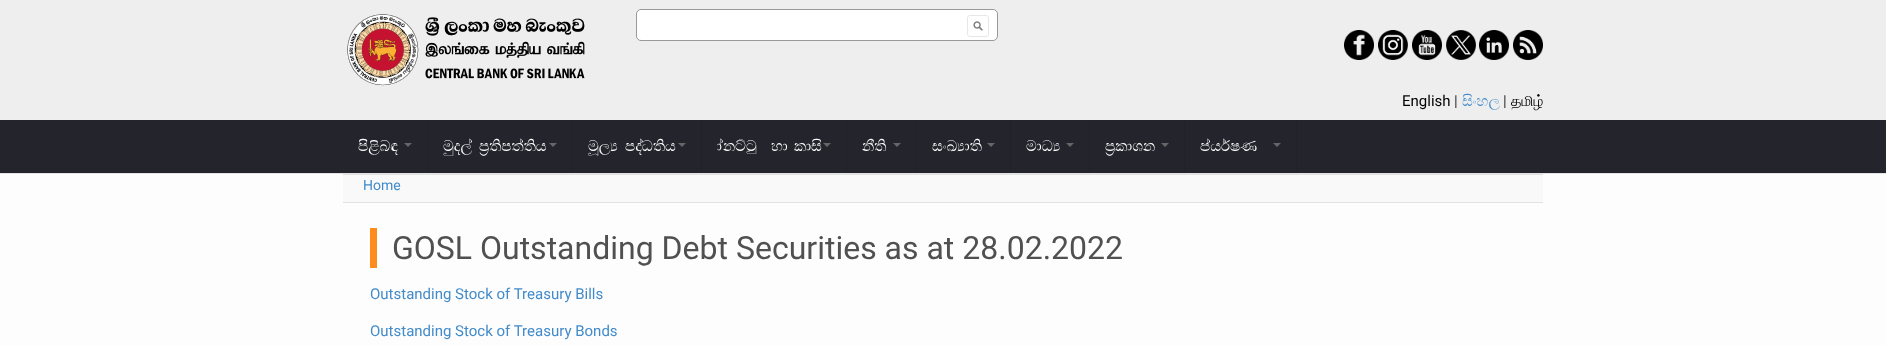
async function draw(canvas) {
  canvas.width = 1886;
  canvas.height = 345;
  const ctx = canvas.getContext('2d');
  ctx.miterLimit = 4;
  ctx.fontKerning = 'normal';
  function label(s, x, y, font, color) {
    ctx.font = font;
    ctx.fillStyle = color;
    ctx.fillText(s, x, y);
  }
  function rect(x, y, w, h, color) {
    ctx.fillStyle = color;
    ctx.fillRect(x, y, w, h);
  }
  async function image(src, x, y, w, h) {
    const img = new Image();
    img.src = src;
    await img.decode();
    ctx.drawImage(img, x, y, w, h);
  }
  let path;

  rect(0, 0, 1886, 345, '#fdfdfd');
  rect(0, 0, 1886, 120, '#eee');
  await image('assets/img1.png', 347, 14, 238, 72);
  ctx.fillStyle = '#fff';
  ctx.beginPath();
  ctx.roundRect(636.5, 9.5, 361, 31, 4.5);
  ctx.fill();
  ctx.strokeStyle = '#999';
  ctx.stroke();
  await image('assets/img2.png', 973, 21, 10, 10);
  ctx.beginPath();
  ctx.roundRect(967.5, 15.5, 21, 21, 2.5);
  ctx.strokeStyle = '#e6e7e8';
  ctx.stroke();
  await image('assets/img3.png', 1344, 30, 30, 30);
  await image('assets/img4.png', 1378, 30, 30, 30);
  await image('assets/img5.png', 1412, 30, 30, 30);
  await image('assets/img6.png', 1446, 30, 30, 30);
  await image('assets/img7.png', 1479, 30, 30, 30);
  await image('assets/img8.png', 1513, 30, 30, 30);
  label('English', 1402, 106, '15px Roboto', '#000');
  label('|', 1454, 106, '15px Roboto', '#333');
  label('සිංහල', 1462, 106, '15px FreeSerif', '#428bca');
  label('தமிழ்', 1511, 106, '15px FreeSerif', '#000');
  label('|', 1503, 106, '15px Roboto', '#333');
  rect(0, 120, 1886, 53, '#23242c');
  rect(0, 173, 1886, 1, '#e2e2e2');
  rect(427, 120, 1, 53, '#222');
  label('පිළිබඳ', 358, 151, '15px FreeSerif', '#fff');
  ctx.fillStyle = '#666';
  path = new Path2D('M404 143H412L408 147Z');
  ctx.fill(path);
  rect(572, 120, 1, 53, '#222');
  label('මුදල්', 443, 151, '15px FreeSerif', '#fff');
  label('ප්‍රතිපත්තිය', 479, 151, '15px FreeSerif', '#fff');
  ctx.fillStyle = '#666';
  path = new Path2D('M549 143H557L553 147Z');
  ctx.fill(path);
  rect(701, 120, 1, 53, '#222');
  label('මූල්‍ය', 588, 151, '15px FreeSerif', '#fff');
  label('පද්ධතිය', 625, 151, '15px FreeSerif', '#fff');
  ctx.fillStyle = '#666';
  path = new Path2D('M678 143H686L682 147Z');
  ctx.fill(path);
  rect(846, 120, 1, 53, '#222');
  label('නෝට්ටු', 717, 151, '15px FreeSerif', '#fff');
  label('හා', 771, 151, '15px FreeSerif', '#fff');
  label('කාසි', 794, 151, '15px FreeSerif', '#fff');
  ctx.fillStyle = '#666';
  path = new Path2D('M823 143H831L827 147Z');
  ctx.fill(path);
  rect(916, 120, 1, 53, '#222');
  label('නීති', 862, 151, '15px FreeSerif', '#fff');
  ctx.fillStyle = '#666';
  path = new Path2D('M893 143H901L897 147Z');
  ctx.fill(path);
  rect(1010, 120, 1, 53, '#222');
  label('සංඛ්‍යාති', 932, 151, '15px FreeSerif', '#fff');
  ctx.fillStyle = '#666';
  path = new Path2D('M987 143H995L991 147Z');
  ctx.fill(path);
  rect(1089, 120, 1, 53, '#222');
  label('මාධ්‍ය', 1026, 151, '15px FreeSerif', '#fff');
  ctx.fillStyle = '#666';
  path = new Path2D('M1066 143H1074L1070 147Z');
  ctx.fill(path);
  rect(1184, 120, 1, 53, '#222');
  label('ප්‍රකාශන', 1105, 151, '15px FreeSerif', '#fff');
  ctx.fillStyle = '#666';
  path = new Path2D('M1161 143H1169L1165 147Z');
  ctx.fill(path);
  rect(1296, 120, 1, 53, '#222');
  label('පර්යේෂණ', 1200, 151, '15px FreeSerif', '#fff');
  ctx.fillStyle = '#666';
  path = new Path2D('M1273 143H1281L1277 147Z');
  ctx.fill(path);
  rect(343, 175, 1200, 27, '#f9f9f9');
  rect(343, 174, 1200, 1, '#e2e2e2');
  rect(343, 202, 1200, 1, '#e2e2e2');
  label('Home', 363, 190, '14px Roboto', '#428bca');
  rect(370, 228, 7, 40, '#ff8c1a');
  label('GOSL Outstanding Debt Securities as at 28.02.2022', 392, 259, '32px Roboto', '#505050');
  label('Outstanding Stock of Treasury Bills', 370, 299, '15px Roboto', '#428bca');
  label('Outstanding Stock of Treasury Bonds', 370, 336, '15px Roboto', '#428bca');
}

draw(document.querySelector('canvas'));
